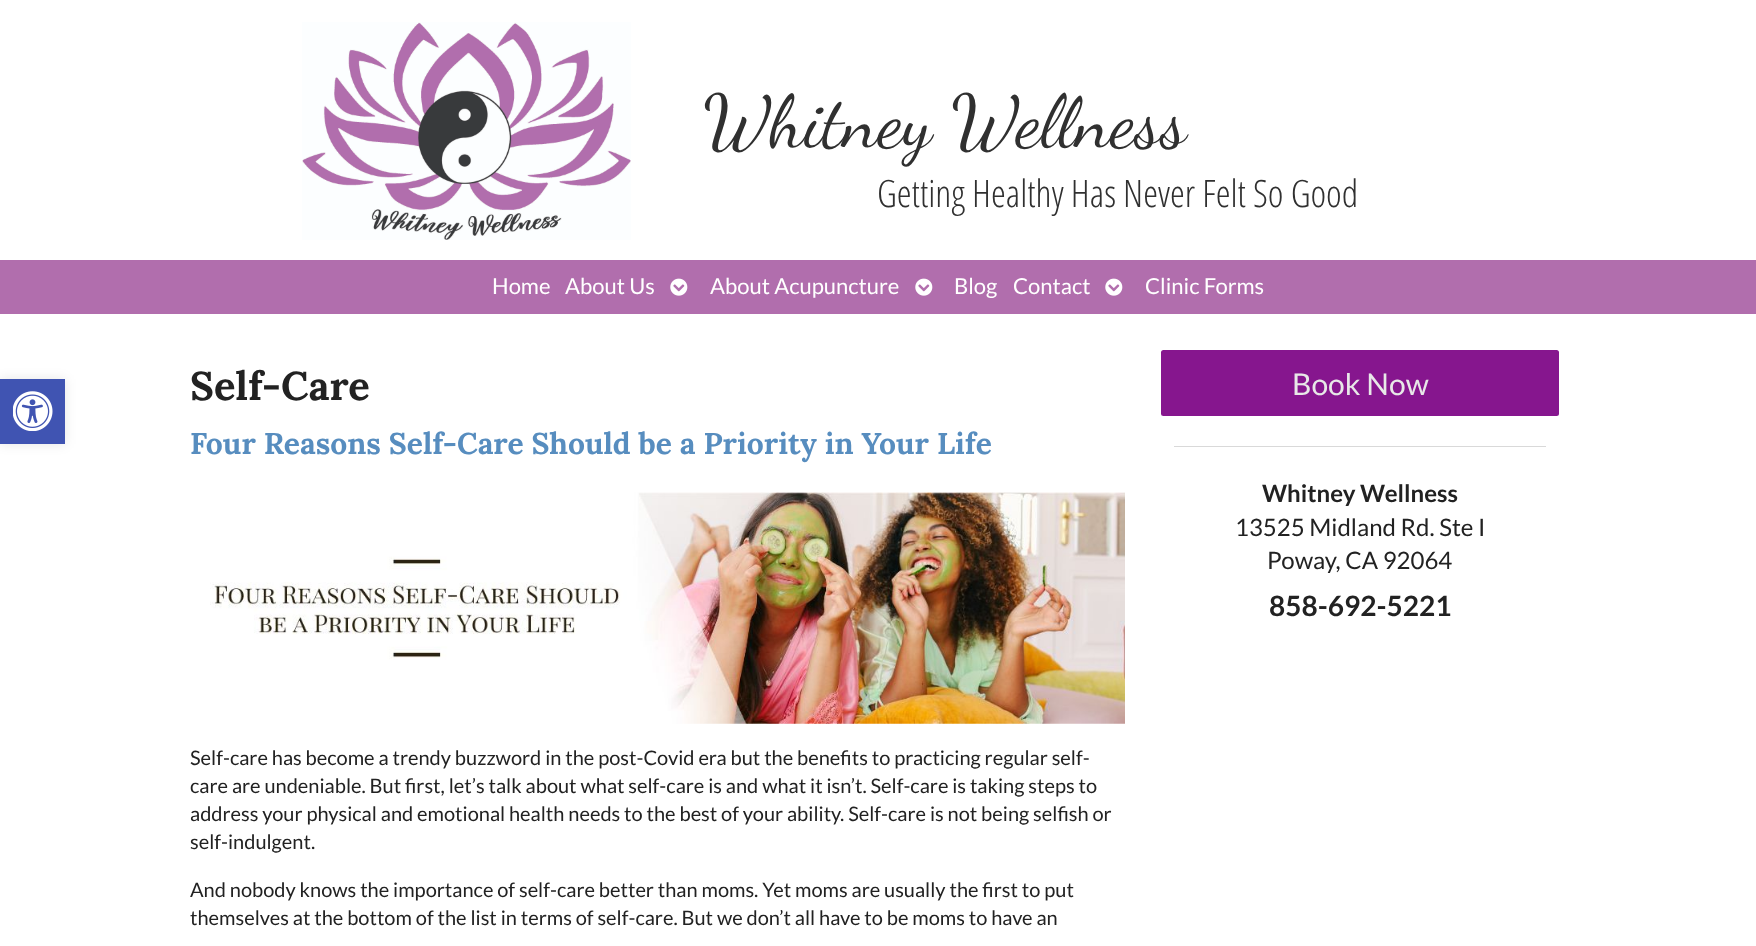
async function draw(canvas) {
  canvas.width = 1756;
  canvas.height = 946;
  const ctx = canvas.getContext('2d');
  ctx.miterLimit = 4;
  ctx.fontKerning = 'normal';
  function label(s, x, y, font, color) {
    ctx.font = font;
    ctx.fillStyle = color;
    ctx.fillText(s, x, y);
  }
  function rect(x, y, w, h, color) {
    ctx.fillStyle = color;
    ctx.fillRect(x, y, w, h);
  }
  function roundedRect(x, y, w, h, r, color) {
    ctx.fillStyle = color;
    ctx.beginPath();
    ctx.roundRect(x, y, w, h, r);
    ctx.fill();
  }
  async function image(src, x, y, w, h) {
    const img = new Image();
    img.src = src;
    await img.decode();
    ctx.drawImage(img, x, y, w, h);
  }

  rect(0, 0, 1756, 946, '#fff');
  ctx.fillStyle = '#0000001a';
  ctx.filter = 'blur(6px)';
  ctx.beginPath();
  ctx.rect(0, 379, 65, 65);
  ctx.fill();
  ctx.filter = 'none';
  rect(0, 379, 65, 65, '#4054b2');
  await image('assets/img1.png', 13, 391, 40, 40);
  await image('assets/img2.png', 302, 22, 329, 218);
  label('Whitney Wellness', 703, 146, '74.25px Dancing Script', '#303030');
  label('Getting Healthy Has Never Felt So Good', 877, 207, '300 37.75px Open Sans Condensed', '#303030');
  rect(0, 260, 1756, 54, '#b16ead');
  label('Home', 492, 294, '22px Lato', '#fff');
  label('About Us', 565, 294, '22px Lato', '#fff');
  await image('assets/img3.png', 670, 278, 18, 18);
  label('About Acupuncture', 710, 294, '22px Lato', '#fff');
  await image('assets/img3.png', 915, 278, 18, 18);
  label('Blog', 954, 294, '22px Lato', '#fff');
  label('Contact', 1013, 294, '22px Lato', '#fff');
  await image('assets/img3.png', 1105, 278, 18, 18);
  label('Clinic Forms', 1145, 294, '22px Lato', '#fff');
  label('Self-Care', 190, 400, 'bold 40px Lora', '#222');
  label('Four Reasons Self-Care Should be a Priority in Your Life', 190, 454, 'bold 30px Lora', '#578dbf');
  await image('assets/img4.png', 210, 492, 915, 232);
  label('Self-care has become a trendy buzzword in the post-Covid era but the benefits to practicing regular self-', 190, 765, '20px Lato', '#222');
  label('care are undeniable. But first, let’s talk about what self-care is and what it isn’t. Self-care is taking steps to', 190, 793, '20px Lato', '#222');
  label('address your physical and emotional health needs to the best of your ability. Self-care is not being selfish or', 190, 821, '20px Lato', '#222');
  label('self-indulgent.', 190, 849, '20px Lato', '#222');
  label('And nobody knows the importance of self-care better than moms. Yet moms are usually the first to put', 190, 897, '20px Lato', '#222');
  label('themselves at the bottom of the list in terms of self-care. But we don’t all have to be moms to have an', 190, 925, '20px Lato', '#222');
  roundedRect(1161, 350, 398, 66, 2.5, '#86168e');
  label('Book Now', 1292, 395, '30px Lato', '#e8e8e8');
  rect(1174, 446, 372, 1, '#d9d9d9');
  label('Whitney Wellness', 1262, 502, 'bold 24px Lato', '#222');
  label('13525 Midland Rd. Ste I', 1235, 536, '24px Lato', '#222');
  label('Poway, CA 92064', 1267, 569, '24px Lato', '#222');
  label('858-692-5221', 1269, 616, 'bold 28px Lato', '#222');
}

draw(document.querySelector('canvas'));
